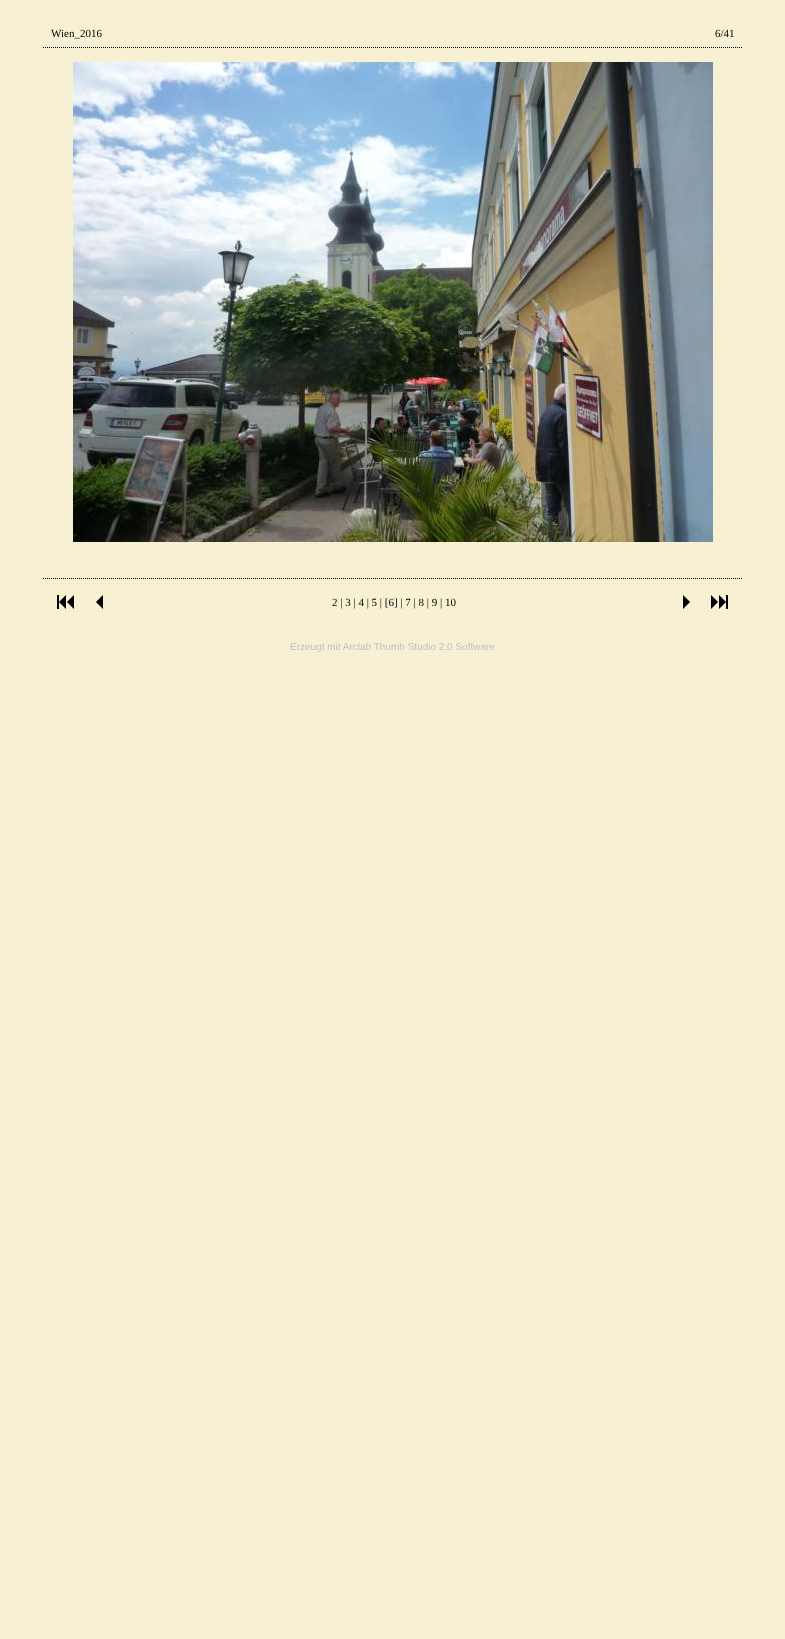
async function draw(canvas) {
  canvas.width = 785;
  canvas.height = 1639;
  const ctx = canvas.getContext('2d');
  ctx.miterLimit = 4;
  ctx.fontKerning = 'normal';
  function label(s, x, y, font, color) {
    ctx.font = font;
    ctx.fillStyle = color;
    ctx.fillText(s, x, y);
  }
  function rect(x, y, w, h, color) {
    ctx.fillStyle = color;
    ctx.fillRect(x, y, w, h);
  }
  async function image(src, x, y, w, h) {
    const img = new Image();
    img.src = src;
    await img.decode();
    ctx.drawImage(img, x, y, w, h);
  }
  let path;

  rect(0, 0, 785, 1639, '#f8f0d2');
  path = new Path2D('M43 47.5H743');
  ctx.strokeStyle = '#000';
  ctx.setLineDash([1, 1]);
  ctx.stroke(path);
  label('Wien_2016', 51, 37, '11px Liberation Serif', '#000');
  label('6/41', 715, 37, '11px Liberation Serif', '#000');
  await image('assets/img1.png', 73, 62, 640, 480);
  path = new Path2D('M43 578.5H743');
  ctx.stroke(path);
  await image('assets/img2.png', 57, 595, 17, 14);
  await image('assets/img3.png', 96, 595, 7, 14);
  label('2 | 3 | 4 | 5 | [6] | 7 | 8 | 9 | 10', 332, 606, '11px Liberation Serif', '#000');
  await image('assets/img4.png', 683, 595, 7, 14);
  await image('assets/img5.png', 711, 595, 17, 14);
  label('Erzeugt mit Arclab Thumb Studio 2.0 Software', 290, 650, '10px Liberation Sans', '#c0c0c0');
}

draw(document.querySelector('canvas'));
